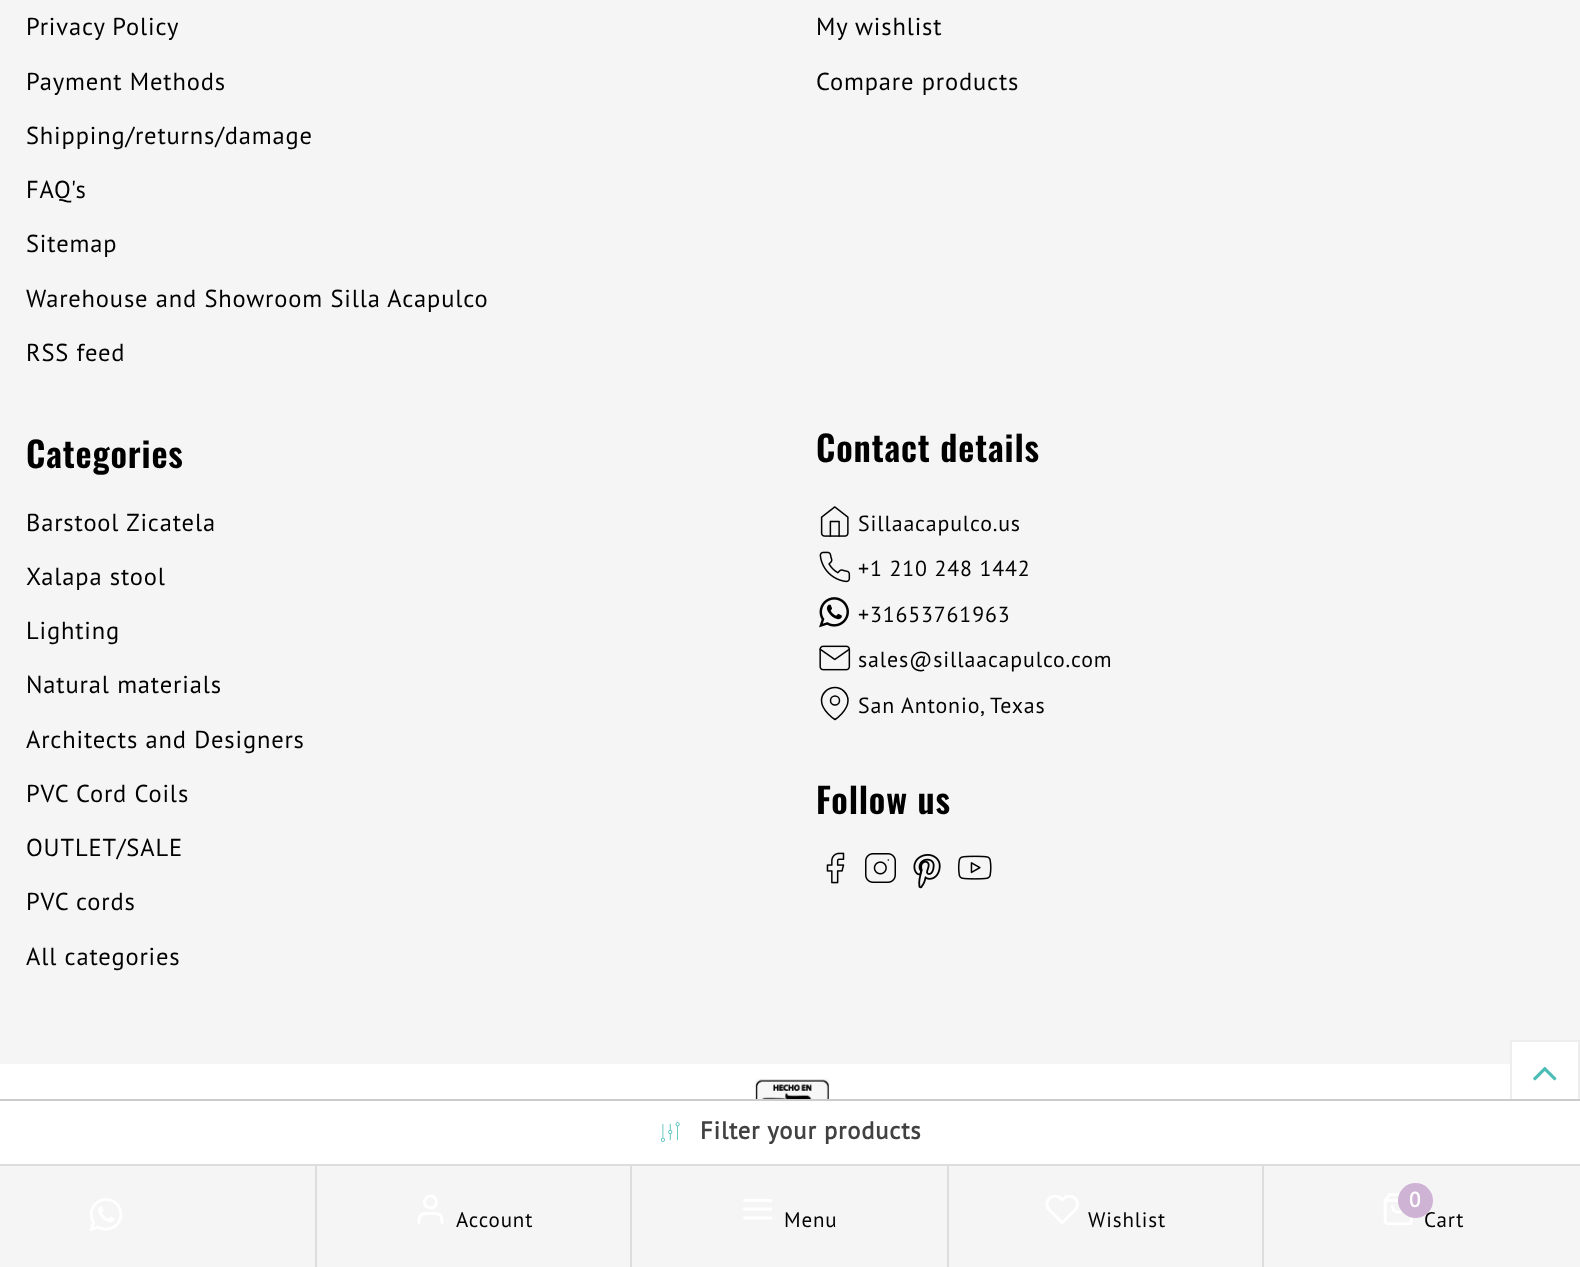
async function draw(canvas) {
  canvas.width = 1580;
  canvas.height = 1267;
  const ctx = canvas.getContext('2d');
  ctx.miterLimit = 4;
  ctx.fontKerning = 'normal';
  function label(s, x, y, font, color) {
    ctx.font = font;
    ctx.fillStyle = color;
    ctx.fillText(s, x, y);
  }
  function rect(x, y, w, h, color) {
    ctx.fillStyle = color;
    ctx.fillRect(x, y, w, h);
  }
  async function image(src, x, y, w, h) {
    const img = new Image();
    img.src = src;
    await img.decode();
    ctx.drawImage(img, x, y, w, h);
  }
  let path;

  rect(0, 0, 1580, 1267, '#fff');
  rect(0, 0, 1580, 1064, '#f5f5f5');
  ctx.letterSpacing = '0.85px';
  label('Privacy Policy', 26, 35, '24.5px PT Sans', '#000');
  label('Payment Methods', 26, 90, '24.5px PT Sans', '#000');
  label('Shipping/returns/damage', 26, 144, '24.5px PT Sans', '#000');
  label('FAQ\'s', 26, 198, '24.5px PT Sans', '#000');
  label('Sitemap', 26, 252, '24.5px PT Sans', '#000');
  label('Warehouse and Showroom Silla Acapulco', 26, 307, '24.5px PT Sans', '#000');
  label('RSS feed', 26, 361, '24.5px PT Sans', '#000');
  label('My wishlist', 816, 35, '24.5px PT Sans', '#000');
  label('Compare products', 816, 90, '24.5px PT Sans', '#000');
  label('Categories', 26, 468, '600 35px Oswald', '#000');
  label('Barstool Zicatela', 26, 531, '24.5px PT Sans', '#000');
  label('Xalapa stool', 26, 585, '24.5px PT Sans', '#000');
  label('Lighting', 26, 639, '24.5px PT Sans', '#000');
  label('Natural materials', 26, 693, '24.5px PT Sans', '#000');
  label('Architects and Designers', 26, 748, '24.5px PT Sans', '#000');
  label('PVC Cord Coils', 26, 802, '24.5px PT Sans', '#000');
  label('OUTLET/SALE', 26, 856, '24.5px PT Sans', '#000');
  label('PVC cords', 26, 910, '24.5px PT Sans', '#000');
  label('All categories', 26, 965, '24.5px PT Sans', '#000');
  label('Contact details', 816, 462, '600 35px Oswald', '#000');
  await image('assets/img1.png', 820, 506, 29, 31);
  label('Sillaacapulco.us', 858, 531, '21.9px PT Sans', '#000');
  await image('assets/img2.png', 819, 551, 32, 32);
  label('+1 210 248 1442', 858, 576, '21.9px PT Sans', '#000');
  await image('assets/img3.png', 819, 597, 30, 31);
  label('+31653761963', 858, 622, '21.9px PT Sans', '#000');
  await image('assets/img4.png', 819, 645, 32, 26);
  label('sales@sillaacapulco.com', 858, 667, '21.9px PT Sans', '#000');
  path = new Path2D('M848 700.5C848 711 835 719.5 835 719.5C835 719.5 821.5 711 821.5 700.5C821.5 693.5 827.5 687.5 835 687.5C842 687.5 848 693.5 848 700.5Z');
  ctx.strokeStyle = '#000';
  ctx.lineWidth = 1.5;
  ctx.lineCap = 'round';
  ctx.lineJoin = 'round';
  ctx.stroke(path);
  ctx.beginPath();
  ctx.arc(835, 700.5, 4.5, 0, 2 * Math.PI);
  ctx.stroke();
  label('San Antonio, Texas', 858, 713, '21.9px PT Sans', '#000');
  label('Follow us', 816, 814, '600 35px Oswald', '#000');
  await image('assets/img5.png', 826, 852, 19, 32);
  await image('assets/img6.png', 865, 853, 31, 30);
  await image('assets/img7.png', 913, 854, 28, 35);
  await image('assets/img8.png', 957, 855, 35, 25);
  await image('assets/img9.png', 754, 1078, 76, 21);
  rect(1512, 1042, 66, 22, '#fff');
  ctx.strokeStyle = '#eee';
  ctx.lineWidth = 2;
  ctx.lineJoin = 'miter';
  ctx.strokeRect(1511, 1041, 68, 68);
  await image('assets/img10.png', 1533, 1066, 24, 15);
  rect(1510, 1101, 70, 9, '#fff');
  rect(0, 1099, 1580, 2, '#ccc');
  await image('assets/img11.png', 660, 1122, 20, 20);
  label('Filter your products', 700, 1139, 'bold 24.5px PT Sans', '#414141');
  rect(0, 1166, 315, 101, '#f5f5f5');
  rect(0, 1164, 1580, 2, '#ddd');
  rect(315, 1164, 2, 103, '#ddd');
  await image('assets/img12.png', 89, 1198, 33, 33);
  rect(317, 1166, 313, 101, '#f5f5f5');
  rect(630, 1164, 2, 103, '#ddd');
  ctx.beginPath();
  ctx.arc(430.5, 1202, 6, 0, 2 * Math.PI);
  ctx.strokeStyle = '#fff';
  ctx.lineWidth = 2.9;
  ctx.stroke();
  path = new Path2D('M442 1222.5C442 1213 439 1213.5 430.5 1213.5C422 1213.5 419 1213 419 1222.5');
  ctx.lineJoin = 'round';
  ctx.stroke(path);
  label('Account', 456, 1227, '21px PT Sans', '#000');
  rect(632, 1166, 315, 101, '#f5f5f5');
  rect(947, 1164, 2, 103, '#ddd');
  path = new Path2D('M744.5 1209H771M744.5 1200.5H771M744.5 1218H771');
  ctx.stroke(path);
  label('Menu', 784, 1227, '21px PT Sans', '#000');
  rect(949, 1166, 313, 101, '#f5f5f5');
  rect(1262, 1164, 2, 103, '#ddd');
  await image('assets/img13.png', 1045, 1195, 34, 29);
  label('Wishlist', 1088, 1227, '21px PT Sans', '#000');
  rect(1264, 1166, 316, 101, '#f5f5f5');
  await image('assets/img14.png', 1383, 1193, 30, 32);
  label('Cart', 1424, 1227, '21px PT Sans', '#000');
  ctx.fillStyle = '#ceb3d5';
  ctx.beginPath();
  ctx.arc(1415.5, 1200.5, 17.5, 0, 2 * Math.PI);
  ctx.fill();
  label('0', 1409, 1207, 'bold 21px PT Sans', '#fff');
}

draw(document.querySelector('canvas'));
